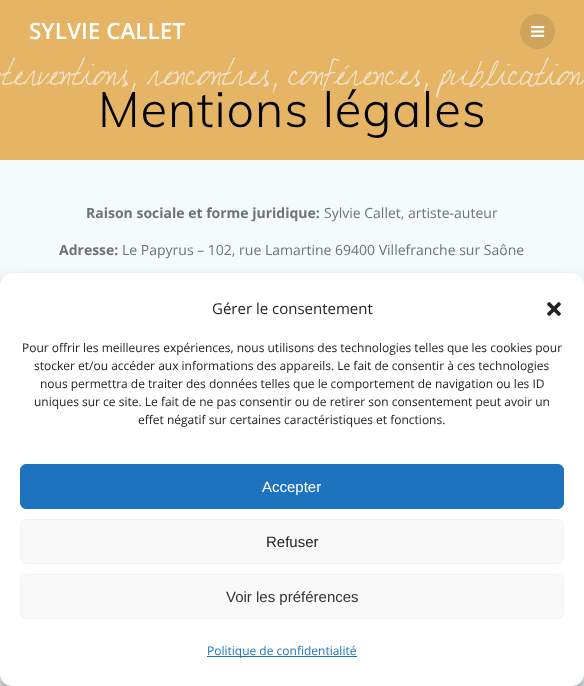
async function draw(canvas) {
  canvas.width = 584;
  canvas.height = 686;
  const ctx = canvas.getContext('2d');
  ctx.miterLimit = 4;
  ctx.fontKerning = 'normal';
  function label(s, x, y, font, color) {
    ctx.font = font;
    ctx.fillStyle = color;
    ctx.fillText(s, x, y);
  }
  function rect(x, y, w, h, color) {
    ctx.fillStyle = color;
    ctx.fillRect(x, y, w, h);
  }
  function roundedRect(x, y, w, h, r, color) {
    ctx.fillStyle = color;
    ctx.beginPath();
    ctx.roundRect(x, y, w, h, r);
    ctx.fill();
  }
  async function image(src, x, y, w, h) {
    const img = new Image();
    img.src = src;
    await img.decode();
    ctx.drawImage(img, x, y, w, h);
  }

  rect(0, 0, 584, 686, '#fff');
  await image('assets/img2.png', 0, 0, 584, 160);
  label('SYLVIE CALLET', 29, 39, '600 22.5px Open Sans', '#fff');
  ctx.fillStyle = '#cea35b';
  ctx.beginPath();
  ctx.arc(537.5, 31.5, 17.5, 0, 2 * Math.PI);
  ctx.fill();
  await image('assets/img1.png', 531, 26, 14, 11);
  ctx.letterSpacing = '0.9px';
  label('Mentions légales', 98, 127, '300 49px Muli', '#000');
  rect(0, 160, 584, 526, '#f5fafd');
  ctx.letterSpacing = '0px';
  label('Raison sociale et forme juridique:', 86, 218, 'bold 14px Open Sans', '#727272');
  label('Sylvie Callet, artiste-auteur', 324, 218, '14px Open Sans', '#727272');
  label('Adresse:', 59, 255, 'bold 14px Open Sans', '#727272');
  label('Le Papyrus – 102, rue Lamartine 69400 Villefranche sur Saône', 122, 255, '14px Open Sans', '#727272');
  ctx.fillStyle = '#0000003b';
  ctx.filter = 'blur(3px)';
  ctx.beginPath();
  ctx.roundRect(0, 279, 584, 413, 12);
  ctx.fill();
  ctx.filter = 'none';
  ctx.fillStyle = '#00000030';
  ctx.filter = 'blur(10px)';
  ctx.beginPath();
  ctx.roundRect(0, 283, 584, 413, 12);
  ctx.fill();
  ctx.filter = 'none';
  roundedRect(0, 273, 584, 413, 12, '#fff');
  label('Gérer le consentement', 212, 314, '15px Open Sans', '#222');
  await image('assets/img3.png', 547, 302, 14, 14);
  label('Pour offrir les meilleures expériences, nous utilisons des technologies telles que les cookies pour', 22, 352, '12px Open Sans', '#222');
  label('stocker et/ou accéder aux informations des appareils. Le fait de consentir à ces technologies', 34, 370, '12px Open Sans', '#222');
  label('nous permettra de traiter des données telles que le comportement de navigation ou les ID', 40, 388, '12px Open Sans', '#222');
  label('uniques sur ce site. Le fait de ne pas consentir ou de retirer son consentement peut avoir un', 34, 406, '12px Open Sans', '#222');
  label('effet négatif sur certaines caractéristiques et fonctions.', 138, 424, '12px Open Sans', '#222');
  ctx.fillStyle = '#1e73be';
  ctx.beginPath();
  ctx.roundRect(20.5, 464.5, 543, 44, 5.5);
  ctx.fill();
  ctx.strokeStyle = '#1e73be';
  ctx.stroke();
  label('Accepter', 262, 492, '15px Liberation Sans', '#fff');
  ctx.fillStyle = '#f9f9f9';
  ctx.beginPath();
  ctx.roundRect(20.5, 519.5, 543, 44, 5.5);
  ctx.fill();
  ctx.strokeStyle = '#f2f2f2';
  ctx.stroke();
  label('Refuser', 266, 547, '15px Liberation Sans', '#222');
  ctx.fillStyle = '#f9f9f9';
  ctx.beginPath();
  ctx.roundRect(20.5, 574.5, 543, 44, 5.5);
  ctx.fill();
  ctx.stroke();
  label('Voir les préférences', 226, 602, '15px Liberation Sans', '#333');
  rect(207, 656, 150, 1, '#1e73be');
  label('Politique de confidentialité', 207, 655, '12px Open Sans', '#1e73be');
}

draw(document.querySelector('canvas'));
